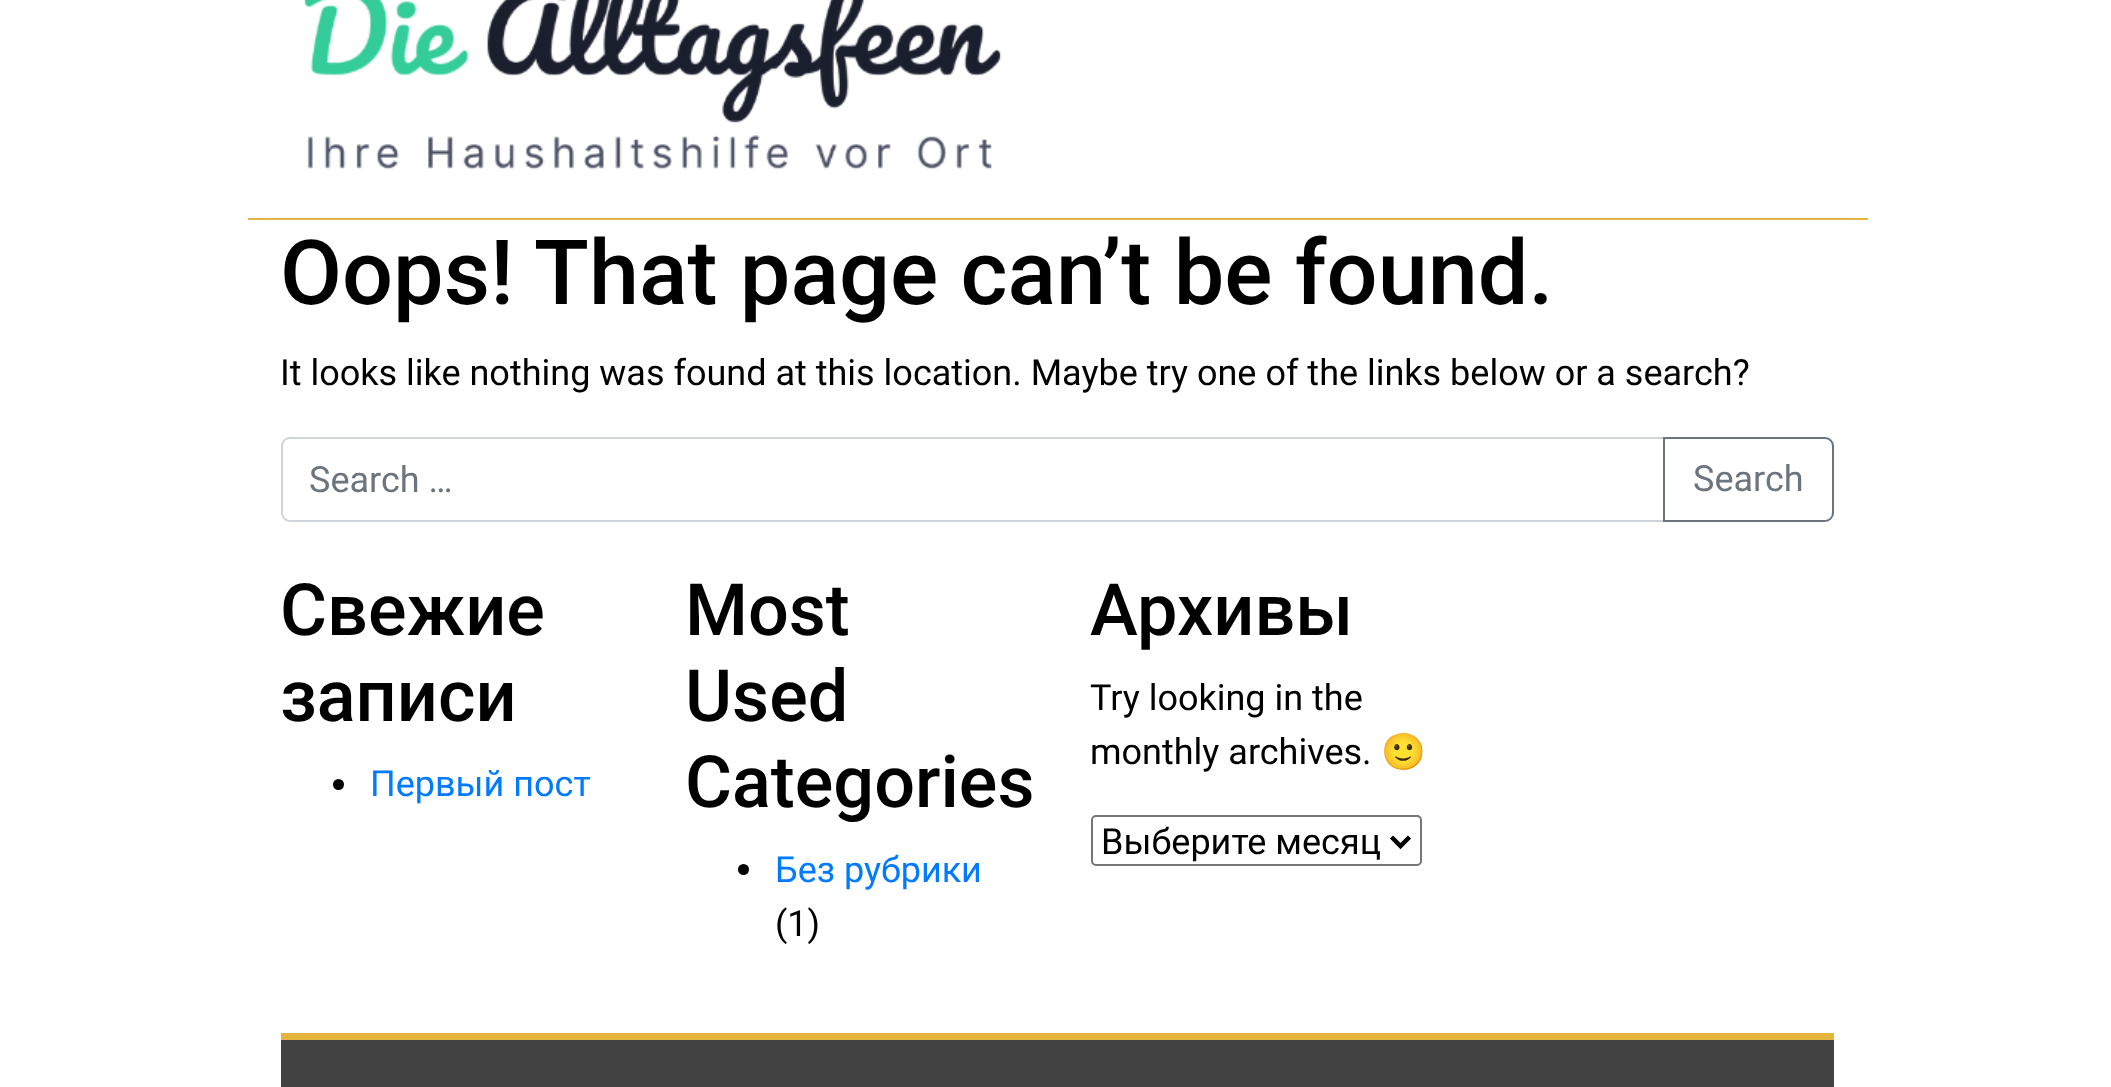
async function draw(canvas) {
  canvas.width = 2111;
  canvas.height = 1087;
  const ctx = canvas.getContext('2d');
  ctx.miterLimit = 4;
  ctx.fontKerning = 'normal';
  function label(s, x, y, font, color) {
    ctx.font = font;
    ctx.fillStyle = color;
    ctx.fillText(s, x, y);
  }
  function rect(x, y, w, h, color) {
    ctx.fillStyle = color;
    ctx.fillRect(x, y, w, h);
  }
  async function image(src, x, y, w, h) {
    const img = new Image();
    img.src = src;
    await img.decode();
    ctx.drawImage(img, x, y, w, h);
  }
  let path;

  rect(0, 0, 2111, 1087, '#fff');
  rect(248, 218, 1620, 2, '#e3b43e');
  await image('assets/img1.png', 304, 0, 697, 170);
  label('Oops! That page can’t be found.', 280, 304, '500 90px Roboto', '#000');
  label('It looks like nothing was found at this location. Maybe try one of the links below or a search?', 280, 385, '36px Roboto', '#000');
  ctx.beginPath();
  ctx.roundRect(282, 438, 1382, 83, [8, 0, 0, 8]);
  ctx.strokeStyle = '#ced4da';
  ctx.lineWidth = 2;
  ctx.stroke();
  label('Search …', 309, 492, '36px Roboto', '#6c757d');
  ctx.beginPath();
  ctx.roundRect(1664, 438, 169, 83, [0, 8, 8, 0]);
  ctx.strokeStyle = '#6c757d';
  ctx.stroke();
  label('Search', 1693, 491, '36px Roboto', '#6c757d');
  label('Свежие', 280, 635, '500 72px Roboto', '#000');
  label('записи', 280, 721, '500 72px Roboto', '#000');
  ctx.beginPath();
  ctx.arc(338.5, 784.5, 5.5, 0, 2 * Math.PI);
  ctx.fill();
  label('Первый пост', 370, 796, '36px Roboto', '#007bff');
  label('Most', 685, 635, '500 72px Roboto', '#000');
  label('Used', 685, 721, '500 72px Roboto', '#000');
  label('Categories', 685, 807, '500 72px Roboto', '#000');
  ctx.beginPath();
  ctx.arc(743.5, 869.5, 5.5, 0, 2 * Math.PI);
  ctx.fill();
  label('Без рубрики', 775, 882, '36px Roboto', '#007bff');
  label('(1)', 775, 936, '36px Roboto', '#000');
  label('Архивы', 1090, 635, '500 72px Roboto', '#000');
  label('Try looking in the', 1090, 710, '36px Roboto', '#000');
  label('monthly archives.', 1090, 764, '36px Roboto', '#000');
  label('🙂', 1381, 764, '36px Noto Color Emoji', '#000');
  ctx.beginPath();
  ctx.roundRect(1092, 816, 329, 49, 4);
  ctx.strokeStyle = '#767676';
  ctx.stroke();
  path = new Path2D('M1391.5 837L1400.5 846L1409.5 837');
  ctx.strokeStyle = '#000';
  ctx.lineWidth = 4.5;
  ctx.stroke(path);
  label('Выберите месяц', 1101, 854, '36px Roboto', '#000');
  rect(281, 1040, 1553, 47, '#424242');
  rect(281, 1033, 1553, 7, '#e3b43e');
}

draw(document.querySelector('canvas'));
